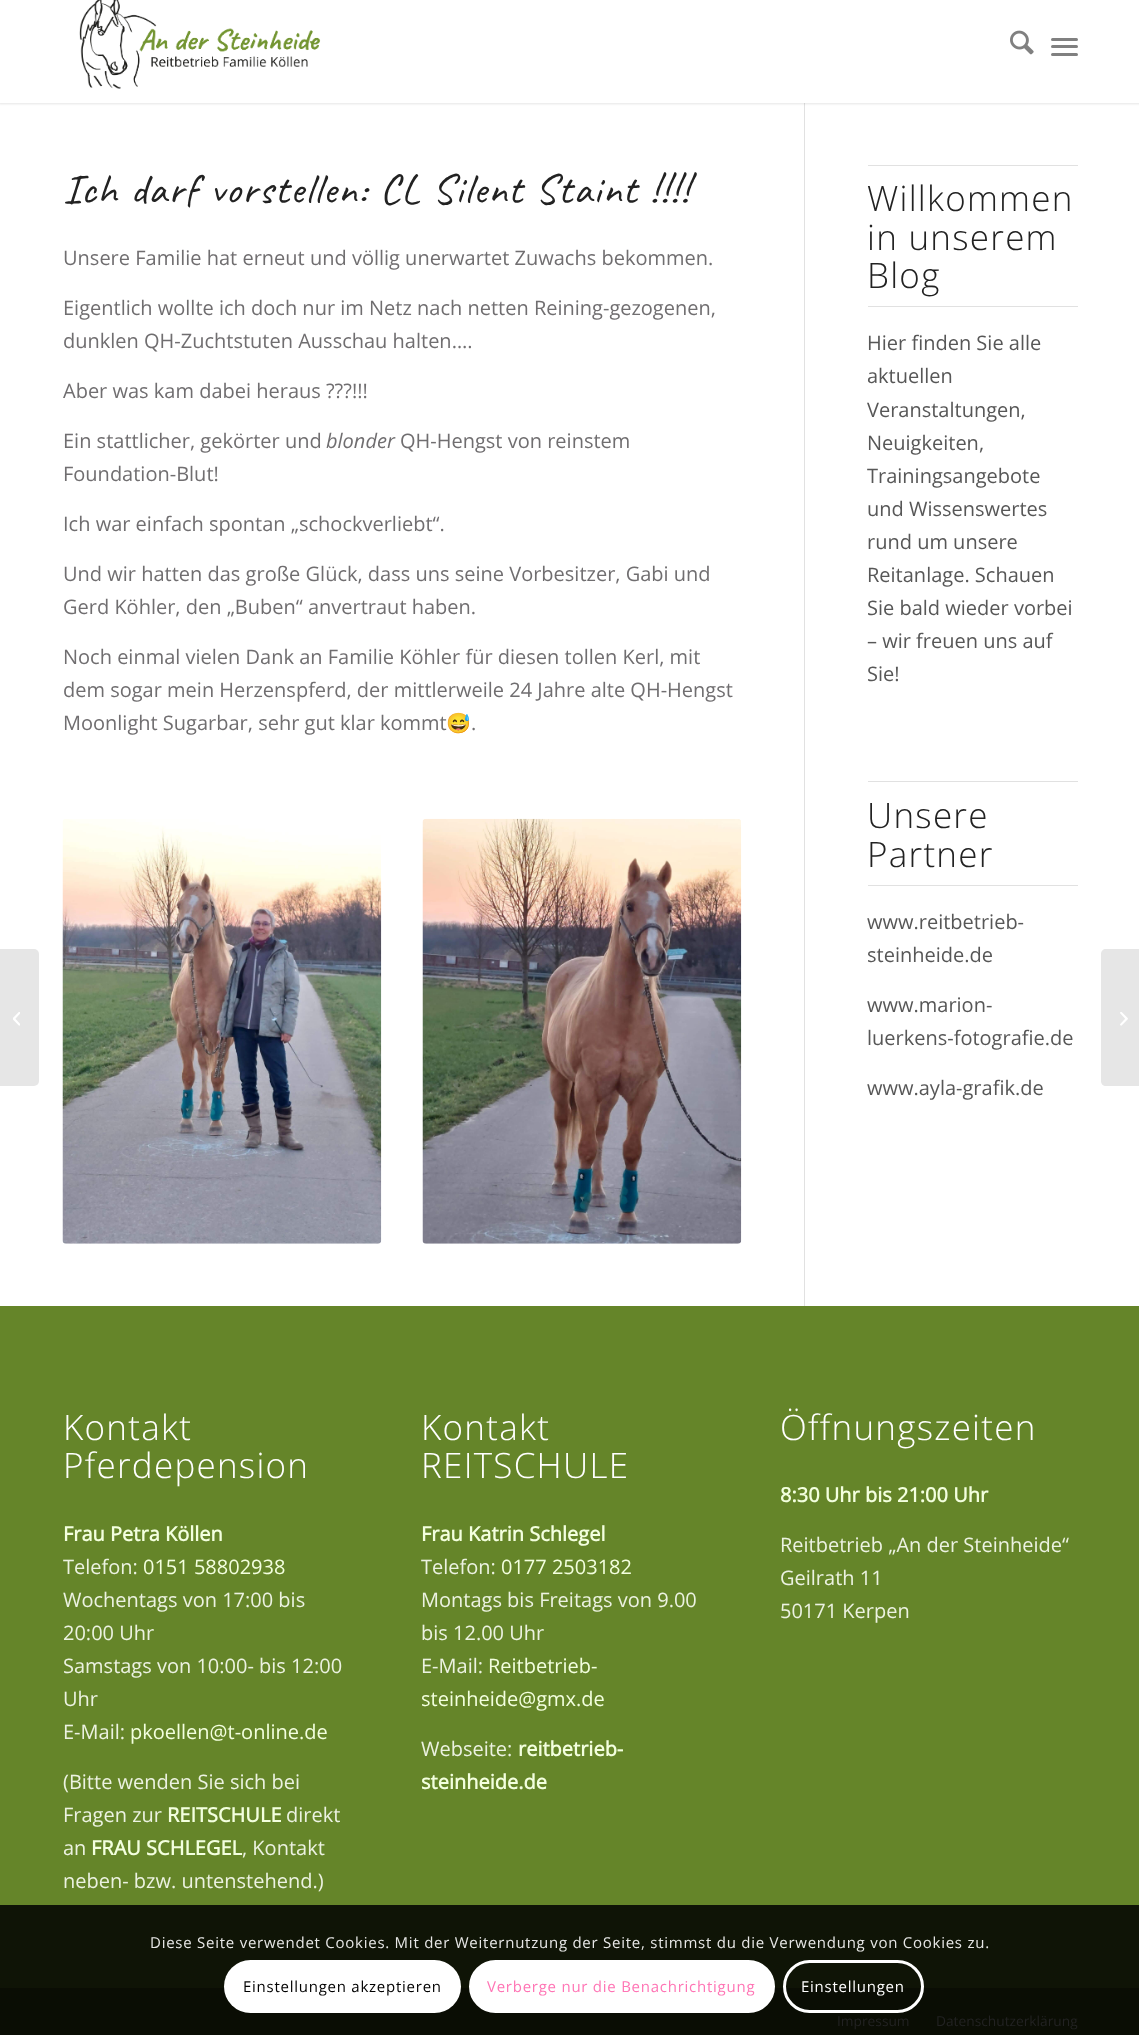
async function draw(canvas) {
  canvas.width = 1139;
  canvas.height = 2035;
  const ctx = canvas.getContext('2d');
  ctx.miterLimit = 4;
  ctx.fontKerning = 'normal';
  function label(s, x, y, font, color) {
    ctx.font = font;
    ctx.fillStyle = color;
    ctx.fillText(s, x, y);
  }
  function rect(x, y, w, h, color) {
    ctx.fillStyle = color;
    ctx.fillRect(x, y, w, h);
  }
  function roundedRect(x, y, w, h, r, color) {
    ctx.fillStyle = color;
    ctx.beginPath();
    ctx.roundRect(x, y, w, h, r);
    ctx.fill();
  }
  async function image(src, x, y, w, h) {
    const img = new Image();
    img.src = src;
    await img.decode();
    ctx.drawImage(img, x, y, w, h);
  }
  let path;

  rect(0, 0, 1139, 2035, '#fff');
  rect(804, 103, 1, 1203, '#e1e1e1');
  ctx.fillStyle = '#0000001a';
  ctx.filter = 'blur(1px)';
  ctx.beginPath();
  ctx.rect(-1, -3, 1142, 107);
  ctx.fill();
  ctx.filter = 'none';
  rect(0, 0, 1139, 103, '#fff');
  await image('assets/img1.png', 79, 0, 242, 89);
  await image('assets/img2.png', 1010, 30, 24, 25);
  roundedRect(1051, 45, 27, 3, 1.5, '#808080');
  roundedRect(1051, 38, 27, 3, 1.5, '#808080');
  roundedRect(1051, 53, 27, 3, 1.5, '#808080');
  ctx.fillStyle = '#e6e6e6';
  ctx.beginPath();
  ctx.roundRect(0, 949, 39, 137, [0, 5, 5, 0]);
  ctx.fill();
  await image('assets/img3.png', 13, 1012, 7, 14);
  ctx.letterSpacing = '1.25px';
  ctx.wordSpacing = '0.5px';
  label('Ich darf vorstellen: CL Silent Staint !!!!', 63, 203, '42.5px Caveat', '#222');
  ctx.letterSpacing = '0px';
  ctx.wordSpacing = '0px';
  label('Unsere Familie hat erneut und völlig unerwartet Zuwachs bekommen.', 63, 265, '20px Open Sans', '#706e70');
  label('Eigentlich wollte ich doch nur im Netz nach netten Reining-gezogenen,', 63, 315, '20px Open Sans', '#706e70');
  label('dunklen QH-Zuchtstuten Ausschau halten….', 63, 348, '20px Open Sans', '#706e70');
  label('Aber was kam dabei heraus ???!!!', 63, 398, '20px Open Sans', '#706e70');
  label('Ein stattlicher, gekörter und', 63, 448, '20px Open Sans', '#706e70');
  label('blonder', 326, 448, 'italic 20px Open Sans', '#706e70');
  label('QH-Hengst von reinstem', 400, 448, '20px Open Sans', '#706e70');
  label('Foundation-Blut!', 63, 481, '20px Open Sans', '#706e70');
  label('Ich war einfach spontan „schockverliebt“.', 63, 531, '20px Open Sans', '#706e70');
  label('Und wir hatten das große Glück, dass uns seine Vorbesitzer, Gabi und', 63, 581, '20px Open Sans', '#706e70');
  label('Gerd Köhler, den „Buben“ anvertraut haben.', 63, 614, '20px Open Sans', '#706e70');
  label('Noch einmal vielen Dank an Familie Köhler für diesen tollen Kerl, mit', 63, 664, '20px Open Sans', '#706e70');
  label('dem sogar mein Herzenspferd, der mittlerweile 24 Jahre alte QH-Hengst', 63, 697, '20px Open Sans', '#706e70');
  label('Moonlight Sugarbar, sehr gut klar kommt', 63, 730, '20px Open Sans', '#706e70');
  label('😅', 446, 730, '20px Noto Color Emoji', '#706e70');
  label('.', 471, 730, '20px Open Sans', '#706e70');
  await image('assets/img4.png', 62, 819, 320, 425);
  await image('assets/img5.png', 422, 818, 320, 426);
  rect(868, 165, 210, 1, '#e1e1e1');
  rect(868, 306, 210, 1, '#e1e1e1');
  ctx.letterSpacing = '1.25px';
  label('Willkommen', 867, 211, '300 35px Open Sans', '#222');
  label('in unserem', 867, 250, '300 35px Open Sans', '#222');
  label('Blog', 867, 288, '300 35px Open Sans', '#222');
  ctx.letterSpacing = '0px';
  label('Hier finden Sie alle', 867, 350, '20px Open Sans', '#575757');
  label('aktuellen', 867, 383, '20px Open Sans', '#575757');
  label('Veranstaltungen,', 867, 417, '20px Open Sans', '#575757');
  label('Neuigkeiten,', 867, 450, '20px Open Sans', '#575757');
  label('Trainingsangebote', 867, 483, '20px Open Sans', '#575757');
  label('und Wissenswertes', 867, 516, '20px Open Sans', '#575757');
  label('rund um unsere', 867, 549, '20px Open Sans', '#575757');
  label('Reitanlage. Schauen', 867, 582, '20px Open Sans', '#575757');
  label('Sie bald wieder vorbei', 867, 615, '20px Open Sans', '#575757');
  label('– wir freuen uns auf', 867, 648, '20px Open Sans', '#575757');
  label('Sie!', 867, 681, '20px Open Sans', '#575757');
  rect(868, 781, 210, 1, '#e1e1e1');
  rect(868, 885, 210, 1, '#e1e1e1');
  ctx.letterSpacing = '1.25px';
  label('Unsere', 867, 828, '300 35px Open Sans', '#222');
  label('Partner', 867, 867, '300 35px Open Sans', '#222');
  ctx.letterSpacing = '0px';
  label('www.reitbetrieb-', 867, 929, '20px Open Sans', '#575757');
  label('steinheide.de', 867, 962, '20px Open Sans', '#575757');
  label('www.marion-', 867, 1012, '20px Open Sans', '#575757');
  label('luerkens-fotografie.de', 867, 1045, '20px Open Sans', '#575757');
  label('www.ayla-grafik.de', 867, 1095, '20px Open Sans', '#575757');
  rect(0, 1306, 1139, 599, '#658529');
  rect(0, 1905, 1139, 83, '#0f1406');
  ctx.letterSpacing = '1.25px';
  label('Kontakt', 63, 1440, '300 35px Open Sans', '#fff');
  label('Pferdepension', 63, 1478, '300 35px Open Sans', '#fff');
  ctx.letterSpacing = '0px';
  label('Frau Petra Köllen', 63, 1541, 'bold 20px Open Sans', '#f3ffde');
  ctx.save();
  ctx.beginPath();
  ctx.rect(63, 1364, 297, 550);
  ctx.clip();
  label('Telefon:', 63, 1574, '20px Open Sans', '#ecf2e1');
  ctx.restore();
  label('0151 58802938', 143, 1574, '20px Open Sans', '#f3ffde');
  label('Wochentags von 17:00 bis', 63, 1607, '20px Open Sans', '#ecf2e1');
  label('20:00 Uhr', 63, 1640, '20px Open Sans', '#ecf2e1');
  label('Samstags von 10:00- bis 12:00', 63, 1673, '20px Open Sans', '#ecf2e1');
  label('Uhr', 63, 1706, '20px Open Sans', '#ecf2e1');
  label('E-Mail:', 63, 1739, '20px Open Sans', '#ecf2e1');
  label('pkoellen@t-online.de', 130, 1739, '20px Open Sans', '#f3ffde');
  label('(Bitte wenden Sie sich bei', 63, 1789, '20px Open Sans', '#ecf2e1');
  label('Fragen zur', 63, 1822, '20px Open Sans', '#ecf2e1');
  label('REITSCHULE', 167, 1822, 'bold 20px Open Sans', '#f3ffde');
  label('direkt', 286, 1822, '20px Open Sans', '#ecf2e1');
  label('an', 63, 1855, '20px Open Sans', '#ecf2e1');
  label('FRAU SCHLEGEL', 91, 1855, 'bold 20px Open Sans', '#f3ffde');
  label(', Kontakt', 242, 1855, '20px Open Sans', '#ecf2e1');
  label('neben- bzw. untenstehend.)', 63, 1888, '20px Open Sans', '#ecf2e1');
  ctx.letterSpacing = '1.25px';
  label('Kontakt', 421, 1440, '300 35px Open Sans', '#fff');
  label('REITSCHULE', 421, 1478, '300 35px Open Sans', '#fff');
  ctx.letterSpacing = '0px';
  label('Frau Katrin Schlegel', 421, 1541, 'bold 20px Open Sans', '#f3ffde');
  label('Telefon:', 421, 1574, '20px Open Sans', '#ecf2e1');
  label('0177 2503182', 501, 1574, '20px Open Sans', '#f3ffde');
  label('Montags bis Freitags von 9.00', 421, 1607, '20px Open Sans', '#ecf2e1');
  label('bis 12.00 Uhr', 421, 1640, '20px Open Sans', '#ecf2e1');
  label('E-Mail:', 421, 1673, '20px Open Sans', '#ecf2e1');
  label('Reitbetrieb-', 488, 1673, '20px Open Sans', '#f3ffde');
  label('steinheide@gmx.de', 421, 1706, '20px Open Sans', '#f3ffde');
  label('Webseite:', 421, 1756, '20px Open Sans', '#ecf2e1');
  label('reitbetrieb-', 518, 1756, 'bold 20px Open Sans', '#f3ffde');
  label('steinheide.de', 421, 1789, 'bold 20px Open Sans', '#f3ffde');
  ctx.letterSpacing = '1.25px';
  label('Öffnungszeiten', 780, 1440, '300 35px Open Sans', '#fff');
  ctx.letterSpacing = '0px';
  label('8:30 Uhr bis 21:00 Uhr', 780, 1502, 'bold 20px Open Sans', '#f3ffde');
  label('Reitbetrieb „An der Steinheide“', 780, 1552, '20px Open Sans', '#ecf2e1');
  label('Geilrath 11', 780, 1585, '20px Open Sans', '#ecf2e1');
  label('50171 Kerpen', 780, 1618, '20px Open Sans', '#ecf2e1');
  rect(0, 1988, 1139, 47, '#0a0d04');
  label('Impressum', 837, 2026, '13.75px Open Sans', '#222');
  label('Datenschutzerklärung', 936, 2026, '13.75px Open Sans', '#222');
  ctx.fillStyle = '#e6e6e6';
  path = new Path2D('M1106 949H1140V1086H1106C1103 1086 1101 1084 1101 1081V954C1101 951 1103 949 1106 949Z');
  ctx.fill(path);
  await image('assets/img6.png', 1120, 1012, 8, 14);
  ctx.letterSpacing = '0.75px';
  label('Diese Seite verwendet Cookies. Mit der Weiternutzung der Seite, stimmst du die Verwendung von Cookies zu.', 150, 1948, '15px Open Sans', '#e7e7e6');
  roundedRect(224, 1960, 237, 53, 26.5, '#fff');
  label('Einstellungen akzeptieren', 243, 1992, '15px Open Sans', '#000');
  ctx.fillStyle = '#fff';
  ctx.beginPath();
  ctx.roundRect(470.5, 1961.5, 303, 50, 25);
  ctx.fill();
  ctx.strokeStyle = '#fff';
  ctx.lineWidth = 3;
  ctx.stroke();
  label('Verberge nur die Benachrichtigung', 487, 1992, '15px Open Sans', '#ff75b5');
  ctx.beginPath();
  ctx.roundRect(784.5, 1961.5, 138, 50, 25);
  ctx.stroke();
  label('Einstellungen', 801, 1992, '15px Open Sans', '#fff');
}

draw(document.querySelector('canvas'));
